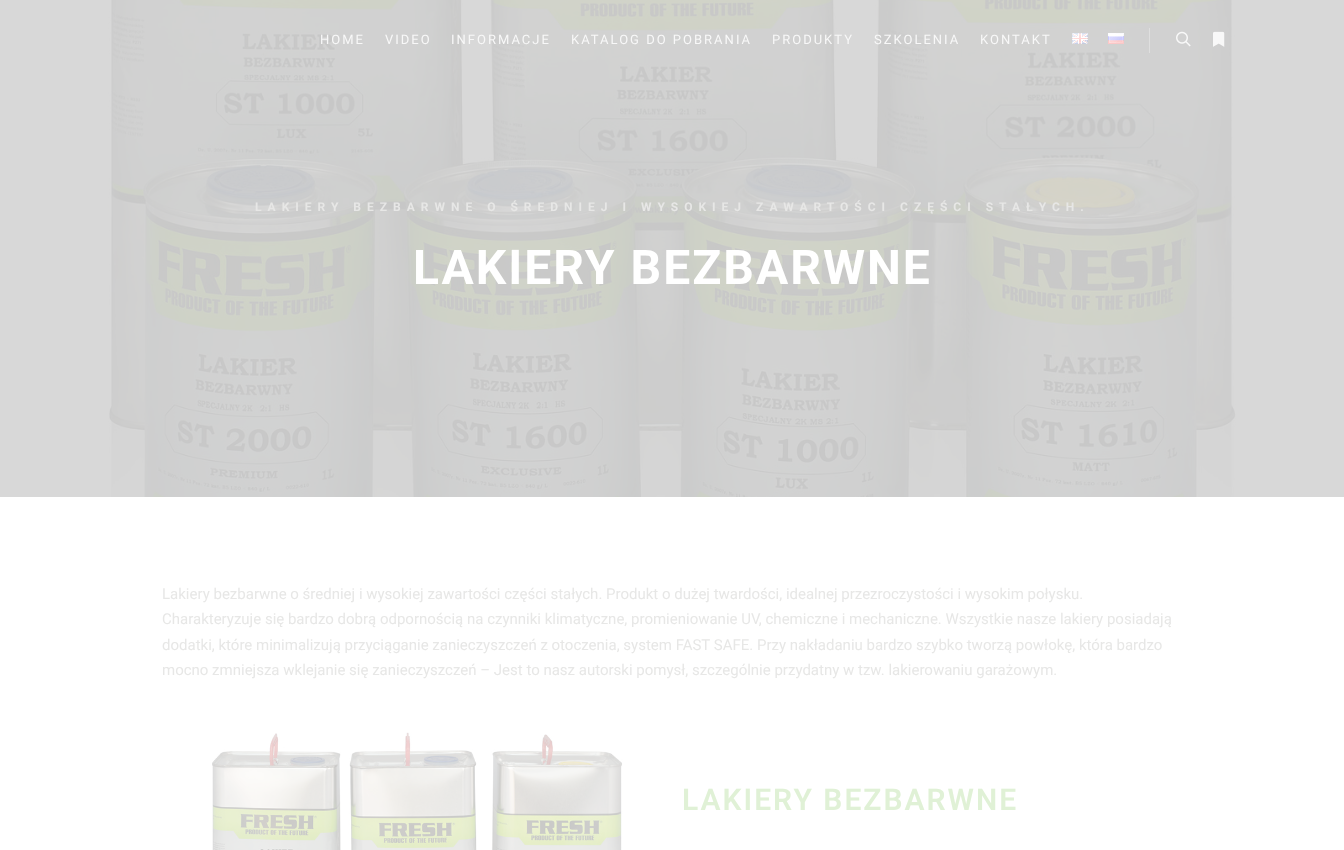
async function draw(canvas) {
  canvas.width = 1344;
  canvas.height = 850;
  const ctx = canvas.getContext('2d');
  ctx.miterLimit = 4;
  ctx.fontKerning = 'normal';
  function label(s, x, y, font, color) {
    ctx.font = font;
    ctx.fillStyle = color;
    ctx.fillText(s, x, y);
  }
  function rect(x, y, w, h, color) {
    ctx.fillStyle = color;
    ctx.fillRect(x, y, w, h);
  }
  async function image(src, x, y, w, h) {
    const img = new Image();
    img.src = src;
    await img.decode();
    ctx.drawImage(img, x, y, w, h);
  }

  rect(0, 0, 1344, 850, '#fff');
  rect(0, 0, 1344, 497, '#d8d8d8');
  await image('assets/img5.png', 107, 0, 1130, 497);
  ctx.letterSpacing = '2px';
  label('HOME', 320, 44, '13px Roboto', '#f8f8f8');
  label('VIDEO', 385, 44, '13px Roboto', '#f8f8f8');
  label('INFORMACJE', 451, 44, '13px Roboto', '#f8f8f8');
  label('KATALOG DO POBRANIA', 571, 44, '13px Roboto', '#f8f8f8');
  label('PRODUKTY', 772, 44, '13px Roboto', '#f8f8f8');
  label('SZKOLENIA', 874, 44, '13px Roboto', '#f8f8f8');
  label('KONTAKT', 980, 44, '13px Roboto', '#f8f8f8');
  await image('assets/img1.png', 1072, 33, 16, 11);
  await image('assets/img2.png', 1108, 33, 16, 11);
  rect(1149, 28, 1, 25, '#dfdfdf');
  await image('assets/img3.png', 1176, 31, 15, 16);
  await image('assets/img4.png', 1213, 31, 12, 16);
  ctx.letterSpacing = '6px';
  label('LAKIERY BEZBARWNE O ŚREDNIEJ I WYSOKIEJ ZAWARTOŚCI CZĘŚCI STAŁYCH.', 255, 211, 'bold 12px Roboto', '#e7e7e6');
  ctx.letterSpacing = '2px';
  label('LAKIERY BEZBARWNE', 413, 284, 'bold 48px Roboto', '#fff');
  ctx.letterSpacing = '0px';
  label('Lakiery bezbarwne o średniej i wysokiej zawartości części stałych. Produkt o dużej twardości, idealnej przezroczystości i wysokim połysku.', 162, 599, '15px Roboto', '#e7e7e6');
  label('Charakteryzuje się bardzo dobrą odpornością na czynniki klimatyczne, promieniowanie UV, chemiczne i mechaniczne. Wszystkie nasze lakiery posiadają', 162, 624, '15px Roboto', '#e7e7e6');
  label('dodatki, które minimalizują przyciąganie zanieczyszczeń z otoczenia, system FAST SAFE. Przy nakładaniu bardzo szybko tworzą powłokę, która bardzo', 162, 650, '15px Roboto', '#e7e7e6');
  label('mocno zmniejsza wklejanie się zanieczyszczeń – Jest to nasz autorski pomysł, szczególnie przydatny w tzw. lakierowaniu garażowym.', 162, 675, '15px Roboto', '#e7e7e6');
  await image('assets/img6.png', 211, 732, 412, 118);
  ctx.letterSpacing = '2px';
  label('LAKIERY BEZBARWNE', 682, 810, '600 30px Roboto', '#e0f1d6');
}

draw(document.querySelector('canvas'));
